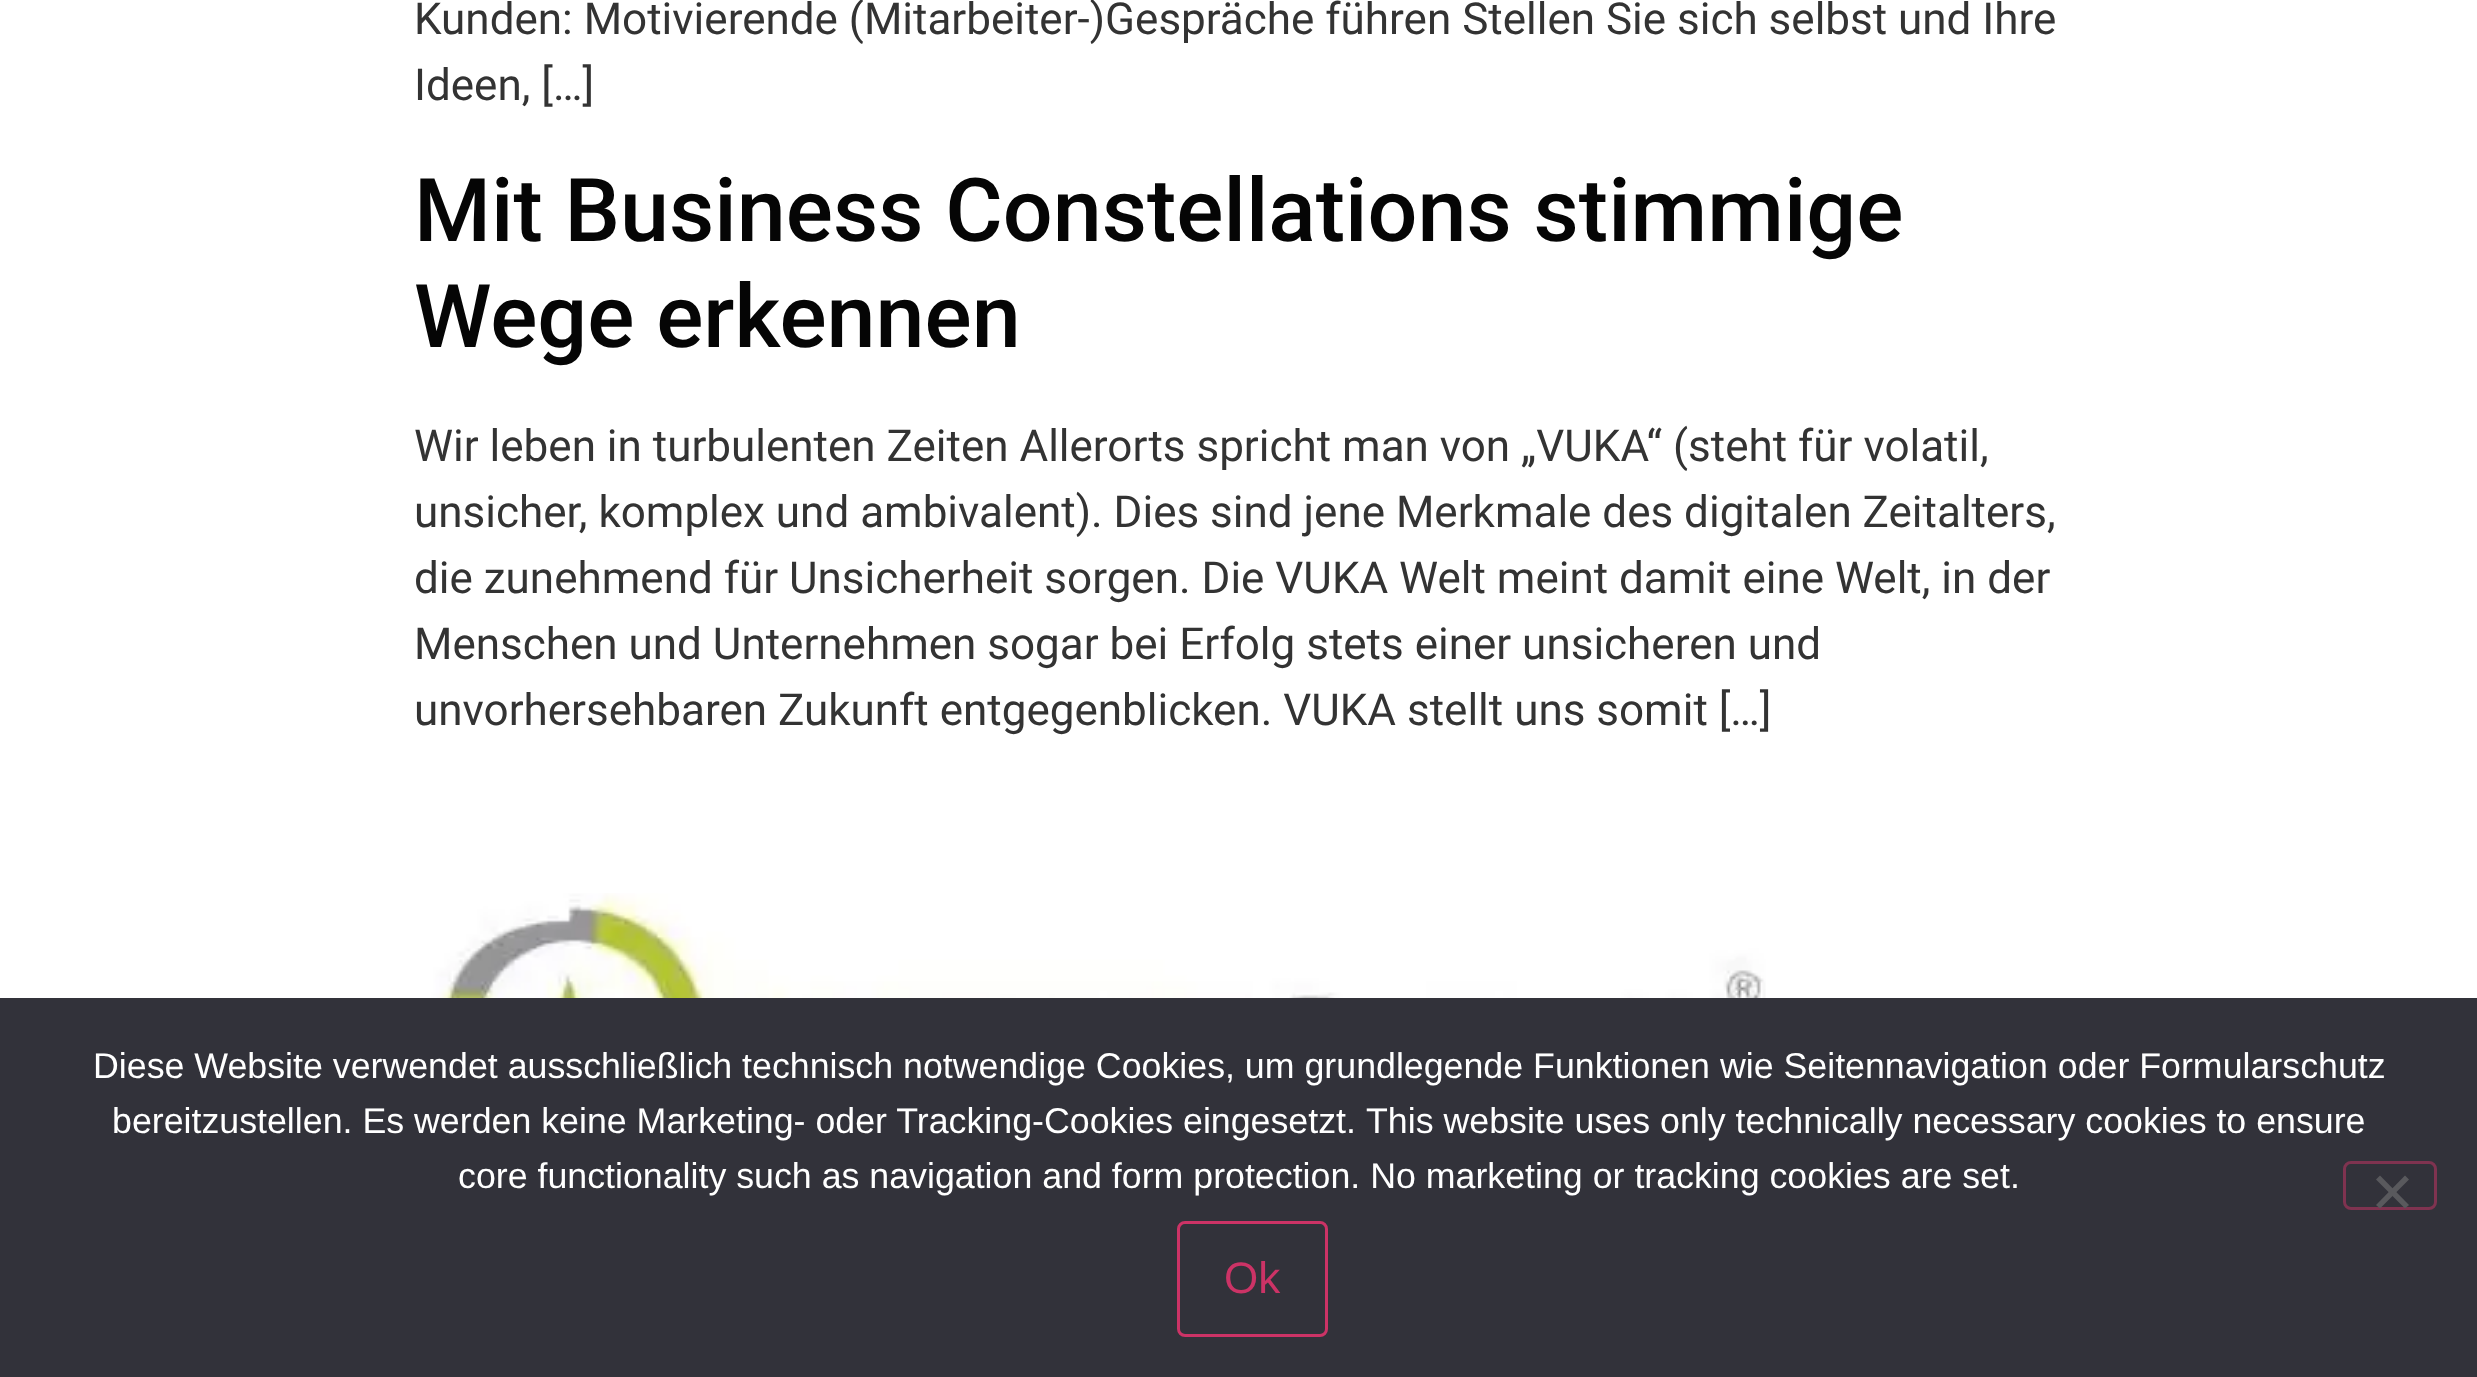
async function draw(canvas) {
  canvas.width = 2477;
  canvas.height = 1377;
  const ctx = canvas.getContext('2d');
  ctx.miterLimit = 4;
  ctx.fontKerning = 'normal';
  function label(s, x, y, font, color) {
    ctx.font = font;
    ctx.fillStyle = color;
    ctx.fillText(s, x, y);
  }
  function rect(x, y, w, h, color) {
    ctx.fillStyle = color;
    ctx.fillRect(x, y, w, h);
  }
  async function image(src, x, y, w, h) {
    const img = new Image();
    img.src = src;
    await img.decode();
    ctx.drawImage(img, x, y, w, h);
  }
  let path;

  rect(0, 0, 2477, 1377, '#fff');
  label('Kunden: Motivierende (Mitarbeiter-)Gespräche führen Stellen Sie sich selbst und Ihre', 414, 34, '44px Roboto', '#333');
  label('Ideen, […]', 414, 100, '44px Roboto', '#333');
  label('Mit Business Constellations stimmige', 414, 241, '500 88px Roboto', '#050505');
  label('Wege erkennen', 414, 347, '500 88px Roboto', '#050505');
  label('Wir leben in turbulenten Zeiten Allerorts spricht man von „VUKA“ (steht für volatil,', 414, 461, '44px Roboto', '#333');
  label('unsicher, komplex und ambivalent). Dies sind jene Merkmale des digitalen Zeitalters,', 414, 527, '44px Roboto', '#333');
  label('die zunehmend für Unsicherheit sorgen. Die VUKA Welt meint damit eine Welt, in der', 414, 593, '44px Roboto', '#333');
  label('Menschen und Unternehmen sogar bei Erfolg stets einer unsicheren und', 414, 659, '44px Roboto', '#333');
  label('unvorhersehbaren Zukunft entgegenblicken. VUKA stellt uns somit […]', 414, 725, '44px Roboto', '#333');
  await image('assets/img1.png', 415, 893, 1351, 105);
  rect(0, 998, 2477, 379, '#32323a');
  label('Diese Website verwendet ausschließlich technisch notwendige Cookies, um grundlegende Funktionen wie Seitennavigation oder Formularschutz', 93, 1078, '35.75px Liberation Sans', '#fff');
  label('bereitzustellen. Es werden keine Marketing- oder Tracking-Cookies eingesetzt.', 112, 1133, '35.75px Liberation Sans', '#fff');
  label('This website uses only technically necessary cookies to ensure', 1366, 1133, '35.75px Liberation Sans', '#fff');
  label('core functionality such as navigation and form protection. No marketing or tracking cookies are set.', 458, 1188, '35.75px Liberation Sans', '#fff');
  ctx.beginPath();
  ctx.roundRect(2344.5, 1162.5, 91, 46, 6.5);
  ctx.strokeStyle = '#7f3350';
  ctx.lineWidth = 3;
  ctx.stroke();
  ctx.fillStyle = '#59595d';
  path = new Path2D('M2405 1175.5L2409 1179.5L2380 1208.5L2376 1205Z');
  ctx.fill(path);
  path = new Path2D('M2376 1179.5L2380 1175.5L2409 1205L2405 1208.5Z');
  ctx.fill(path);
  ctx.beginPath();
  ctx.roundRect(1178.5, 1222.5, 148, 113, 6.5);
  ctx.strokeStyle = '#c36';
  ctx.stroke();
  label('Ok', 1224, 1293, '44px Liberation Sans', '#c36');
}

draw(document.querySelector('canvas'));
